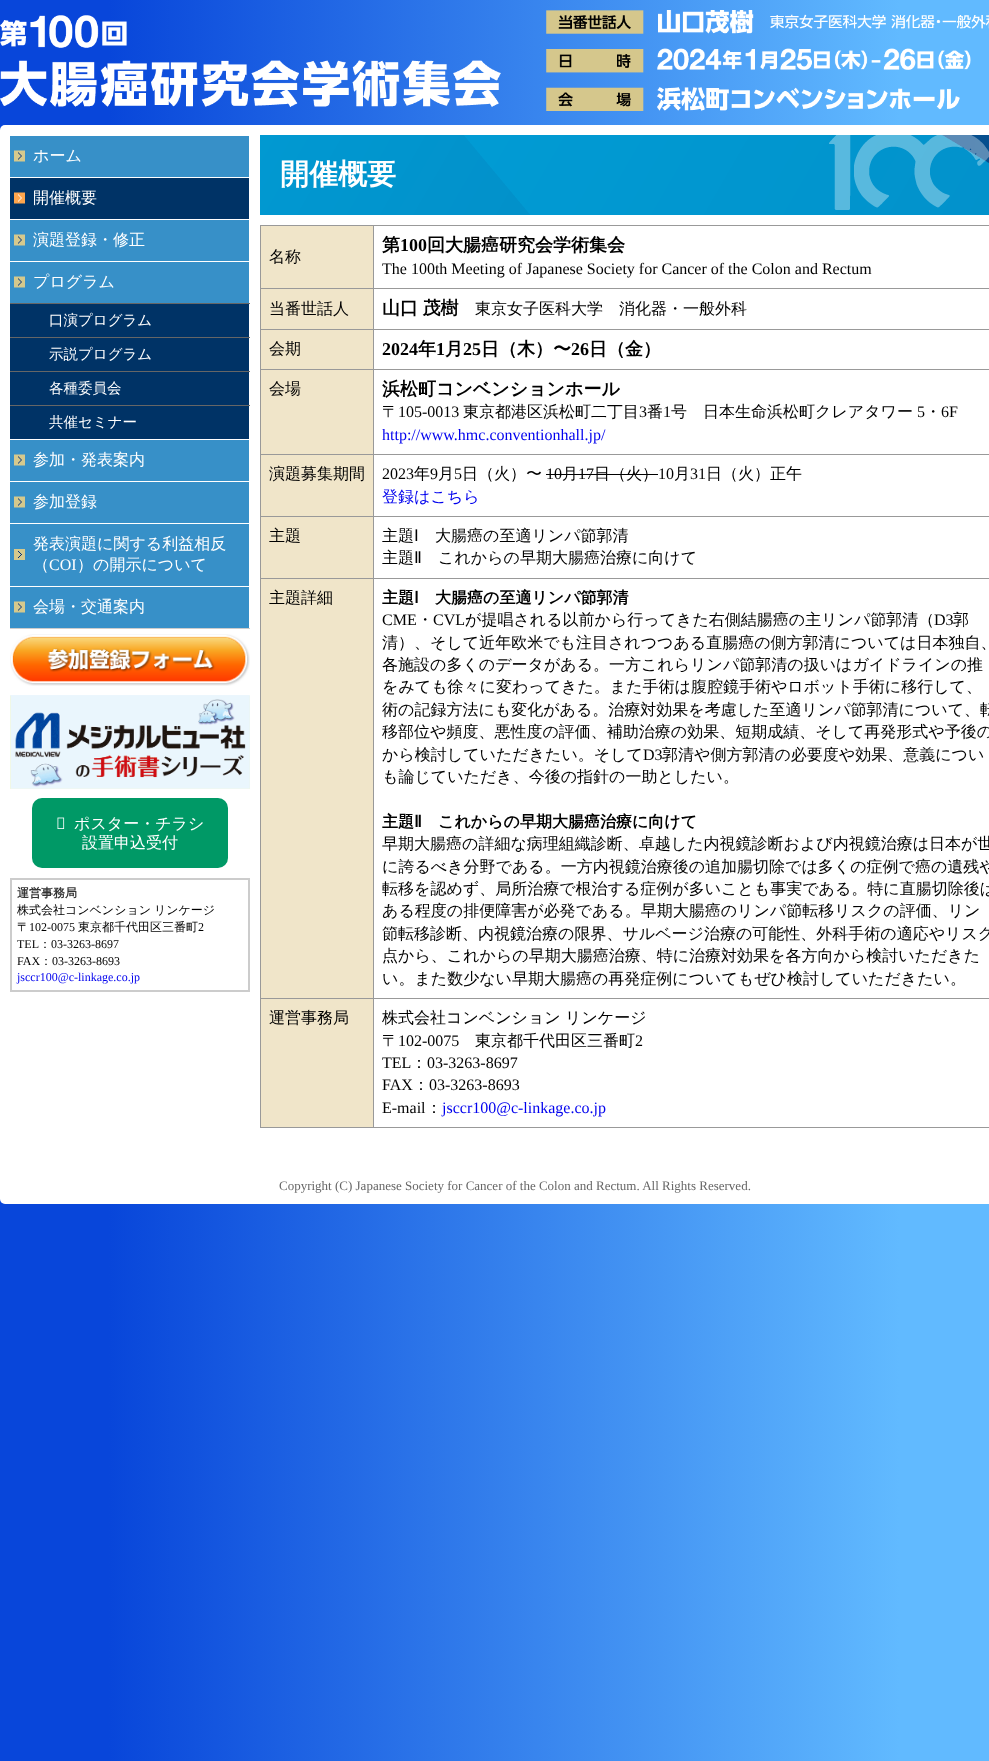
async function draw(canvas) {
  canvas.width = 989;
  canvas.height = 1761;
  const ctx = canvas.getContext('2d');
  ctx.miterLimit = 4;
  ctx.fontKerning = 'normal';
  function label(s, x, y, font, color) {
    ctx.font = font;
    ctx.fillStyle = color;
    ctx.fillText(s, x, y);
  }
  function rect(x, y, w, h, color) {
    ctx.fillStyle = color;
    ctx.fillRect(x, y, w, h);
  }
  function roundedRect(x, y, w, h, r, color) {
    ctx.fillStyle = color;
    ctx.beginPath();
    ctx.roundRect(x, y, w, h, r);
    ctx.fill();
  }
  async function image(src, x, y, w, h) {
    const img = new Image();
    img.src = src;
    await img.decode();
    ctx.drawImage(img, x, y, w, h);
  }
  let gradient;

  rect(0, 0, 989, 1761, '#fff');
  gradient = ctx.createLinearGradient(0, 881, 989, 881);
  gradient.addColorStop(0.11, '#0846da');
  gradient.addColorStop(0.91, '#61baff');
  ctx.fillStyle = gradient;
  ctx.fillRect(0, 0, 989, 1761);
  await image('assets/img1.png', 0, 10, 989, 101);
  roundedRect(0, 125, 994, 1079, 5, '#fff');
  rect(10, 628, 240, 1, '#ccc');
  await image('assets/img2.png', 10, 136, 239, 41);
  label('ホーム', 33, 161, '500 16px WenQuanYi Zen Hei', '#fff');
  await image('assets/img3.png', 10, 178, 239, 41);
  label('開催概要', 33, 203, '500 16px WenQuanYi Zen Hei', '#fff');
  await image('assets/img2.png', 10, 220, 239, 41);
  label('演題登録・修正', 33, 245, '500 16px WenQuanYi Zen Hei', '#fff');
  await image('assets/img2.png', 10, 262, 239, 41);
  label('プログラム', 33, 287, '500 16px WenQuanYi Zen Hei', '#fff');
  rect(10, 303, 240, 1, '#666');
  rect(10, 304, 239, 33, '#036');
  label('口演プログラム', 49, 325, '500 14.5px WenQuanYi Zen Hei', '#fff');
  rect(10, 337, 240, 1, '#666');
  rect(10, 338, 239, 33, '#036');
  label('示説プログラム', 49, 359, '500 14.5px WenQuanYi Zen Hei', '#fff');
  rect(10, 371, 240, 1, '#666');
  rect(10, 372, 239, 33, '#036');
  label('各種委員会', 49, 393, '500 14.5px WenQuanYi Zen Hei', '#fff');
  rect(10, 405, 240, 1, '#666');
  rect(10, 406, 239, 33, '#036');
  label('共催セミナー', 49, 427, '500 14.5px WenQuanYi Zen Hei', '#fff');
  await image('assets/img2.png', 10, 440, 239, 41);
  label('参加・発表案内', 33, 465, '500 16px WenQuanYi Zen Hei', '#fff');
  await image('assets/img2.png', 10, 482, 239, 41);
  label('参加登録', 33, 507, '500 16px WenQuanYi Zen Hei', '#fff');
  await image('assets/img4.png', 10, 524, 239, 62);
  label('発表演題に関する利益相反', 33, 549, '500 16px WenQuanYi Zen Hei', '#fff');
  label('（', 33, 570, '500 16px WenQuanYi Zen Hei', '#fff');
  label('COI', 49, 570, '16px Liberation Serif', '#fff');
  label('）の開示について', 77, 570, '500 16px WenQuanYi Zen Hei', '#fff');
  await image('assets/img2.png', 10, 587, 239, 41);
  label('会場・交通案内', 33, 612, '500 16px WenQuanYi Zen Hei', '#fff');
  await image('assets/img5.png', 10, 634, 240, 52);
  await image('assets/img6.png', 10, 695, 240, 94);
  roundedRect(32, 798, 196, 70, 10, '#096');
  await image('assets/img7.png', 57, 817, 8, 12);
  label('ポスター・チラシ', 74, 829, '500 16px WenQuanYi Zen Hei', '#fff');
  label('設置申込受付', 82, 848, '500 16px WenQuanYi Zen Hei', '#fff');
  ctx.strokeStyle = '#ccc';
  ctx.lineWidth = 2;
  ctx.strokeRect(11, 879, 238, 112);
  label('運営事務局', 17, 897, 'bold 12px WenQuanYi Zen Hei', '#333');
  label('株式会社コンベンション', 17, 914, '500 12px WenQuanYi Zen Hei', '#000');
  label('リンケージ', 154, 914, '500 12px WenQuanYi Zen Hei', '#000');
  label('〒', 17, 931, '500 12px WenQuanYi Zen Hei', '#000');
  label('102-0075', 29, 931, '12px Liberation Serif', '#000');
  label('東京都千代田区三番町', 78, 931, '500 12px WenQuanYi Zen Hei', '#000');
  label('2', 198, 931, '12px Liberation Serif', '#000');
  label('TEL', 17, 948, '12px Liberation Serif', '#000');
  label('：', 39, 948, '500 12px WenQuanYi Zen Hei', '#000');
  label('03-3263-8697', 51, 948, '12px Liberation Serif', '#000');
  label('FAX', 17, 965, '12px Liberation Serif', '#000');
  label('：', 40, 965, '500 12px WenQuanYi Zen Hei', '#000');
  label('03-3263-8693', 52, 965, '12px Liberation Serif', '#000');
  label('jsccr100@c-linkage.co.jp', 17, 981, '12px Liberation Serif', '#00e');
  await image('assets/img8.png', 260, 135, 729, 80);
  label('開催概要', 280, 184, 'bold 29px WenQuanYi Zen Hei', '#fff');
  rect(261, 226, 112, 62, '#f0e5c9');
  rect(373, 225, 616, 1, '#999');
  rect(373, 288, 616, 1, '#999');
  rect(373, 329, 616, 1, '#999');
  rect(373, 369, 616, 1, '#999');
  rect(373, 454, 616, 1, '#999');
  rect(373, 516, 616, 1, '#999');
  rect(373, 578, 616, 1, '#999');
  rect(373, 998, 616, 1, '#999');
  rect(373, 1127, 616, 1, '#999');
  rect(373, 998, 1, 130, '#999');
  rect(260, 998, 114, 1, '#999');
  rect(373, 578, 1, 421, '#999');
  rect(260, 578, 114, 1, '#999');
  rect(373, 516, 1, 63, '#999');
  rect(260, 516, 114, 1, '#999');
  rect(373, 454, 1, 63, '#999');
  rect(260, 454, 114, 1, '#999');
  rect(373, 369, 1, 86, '#999');
  rect(260, 369, 114, 1, '#999');
  rect(373, 329, 1, 41, '#999');
  rect(260, 329, 114, 1, '#999');
  rect(373, 288, 1, 42, '#999');
  rect(260, 288, 114, 1, '#999');
  rect(373, 225, 1, 64, '#999');
  rect(260, 225, 114, 1, '#999');
  rect(260, 1127, 114, 1, '#999');
  rect(260, 998, 1, 130, '#999');
  rect(260, 578, 1, 421, '#999');
  rect(260, 516, 1, 63, '#999');
  rect(260, 454, 1, 63, '#999');
  rect(260, 369, 1, 86, '#999');
  rect(260, 329, 1, 41, '#999');
  rect(260, 288, 1, 42, '#999');
  rect(260, 225, 1, 64, '#999');
  label('名称', 269, 262, '500 16px WenQuanYi Zen Hei', '#000');
  label('第', 382, 251, 'bold 18px WenQuanYi Zen Hei', '#000');
  label('100', 400, 251, 'bold 18px Liberation Serif', '#000');
  label('回大腸癌研究会学術集会', 427, 251, 'bold 18px WenQuanYi Zen Hei', '#000');
  label('The 100th Meeting of Japanese Society for Cancer of the Colon and Rectum', 382, 274, '16px Liberation Serif', '#000');
  rect(261, 289, 112, 40, '#f0e5c9');
  label('当番世話人', 269, 314, '500 16px WenQuanYi Zen Hei', '#000');
  ctx.wordSpacing = '-1px';
  label('山口 茂樹', 382, 314, 'bold 18px WenQuanYi Zen Hei', '#000');
  ctx.wordSpacing = '0px';
  label('東京女子医科大学　消化器・一般外科', 475, 314, '500 16px WenQuanYi Zen Hei', '#000');
  rect(261, 330, 112, 39, '#f0e5c9');
  label('会期', 269, 354, '500 16px WenQuanYi Zen Hei', '#000');
  label('2024', 382, 355, 'bold 18px Liberation Serif', '#000');
  label('年', 418, 355, 'bold 18px WenQuanYi Zen Hei', '#000');
  label('1', 436, 355, 'bold 18px Liberation Serif', '#000');
  label('月', 445, 355, 'bold 18px WenQuanYi Zen Hei', '#000');
  label('25', 463, 355, 'bold 18px Liberation Serif', '#000');
  label('日（木）〜', 481, 355, 'bold 18px WenQuanYi Zen Hei', '#000');
  label('26', 571, 355, 'bold 18px Liberation Serif', '#000');
  label('日（金）', 589, 355, 'bold 18px WenQuanYi Zen Hei', '#000');
  rect(261, 370, 112, 84, '#f0e5c9');
  label('会場', 269, 394, '500 16px WenQuanYi Zen Hei', '#000');
  label('浜松町コンベンションホール', 382, 395, 'bold 18px WenQuanYi Zen Hei', '#000');
  label('〒', 382, 417, '500 16px WenQuanYi Zen Hei', '#000');
  label('105-0013', 398, 417, '16px Liberation Serif', '#000');
  label('東京都港区浜松町二丁目', 463, 417, '500 16px WenQuanYi Zen Hei', '#000');
  label('3', 639, 417, '16px Liberation Serif', '#000');
  label('番', 647, 417, '500 16px WenQuanYi Zen Hei', '#000');
  label('1', 663, 417, '16px Liberation Serif', '#000');
  label('号　日本生命浜松町クレアタワー', 671, 417, '500 16px WenQuanYi Zen Hei', '#000');
  label('5', 917, 417, '16px Liberation Serif', '#000');
  label('・', 925, 417, '500 16px WenQuanYi Zen Hei', '#000');
  label('6F', 941, 417, '16px Liberation Serif', '#000');
  label('http://www.hmc.conventionhall.jp/', 382, 440, '16px Liberation Serif', '#00e');
  rect(261, 455, 112, 61, '#f0e5c9');
  label('演題募集期間', 269, 479, '500 16px WenQuanYi Zen Hei', '#000');
  label('2023', 382, 479, '16px Liberation Serif', '#000');
  label('年', 414, 479, '500 16px WenQuanYi Zen Hei', '#000');
  label('9', 430, 479, '16px Liberation Serif', '#000');
  label('月', 438, 479, '500 16px WenQuanYi Zen Hei', '#000');
  label('5', 454, 479, '16px Liberation Serif', '#000');
  label('日（火）〜', 462, 479, '500 16px WenQuanYi Zen Hei', '#000');
  label('10', 546, 479, '16px Liberation Serif', '#000');
  rect(546, 474, 112, 1, '#000');
  label('月', 562, 479, '500 16px WenQuanYi Zen Hei', '#000');
  label('17', 578, 479, '16px Liberation Serif', '#000');
  label('日（火）', 594, 479, '500 16px WenQuanYi Zen Hei', '#000');
  label('10', 658, 479, '16px Liberation Serif', '#000');
  label('月', 674, 479, '500 16px WenQuanYi Zen Hei', '#000');
  label('31', 690, 479, '16px Liberation Serif', '#000');
  label('日（火）正午', 706, 479, '500 16px WenQuanYi Zen Hei', '#000');
  label('登録はこちら', 382, 502, '500 16px WenQuanYi Zen Hei', '#00e');
  rect(261, 517, 112, 61, '#f0e5c9');
  label('主題', 269, 541, '500 16px WenQuanYi Zen Hei', '#000');
  label('主題', 382, 541, '500 16px WenQuanYi Zen Hei', '#000');
  label('Ⅰ', 414, 541, '16px DejaVu Sans', '#000');
  label('大腸癌の至適リンパ節郭清', 435, 541, '500 16px WenQuanYi Zen Hei', '#000');
  label('主題', 382, 563, '500 16px WenQuanYi Zen Hei', '#000');
  label('Ⅱ', 414, 563, '16px DejaVu Sans', '#000');
  label('これからの早期大腸癌治療に向けて', 438, 563, '500 16px WenQuanYi Zen Hei', '#000');
  rect(261, 579, 112, 419, '#f0e5c9');
  label('主題詳細', 269, 603, '500 16px WenQuanYi Zen Hei', '#000');
  label('主題', 382, 603, 'bold 16px WenQuanYi Zen Hei', '#000');
  label('Ⅰ', 414, 603, 'bold 16px DejaVu Sans', '#000');
  label('大腸癌の至適リンパ節郭清', 435, 603, 'bold 16px WenQuanYi Zen Hei', '#000');
  label('CME', 382, 625, '16px Liberation Serif', '#000');
  label('・', 417, 625, '500 16px WenQuanYi Zen Hei', '#000');
  label('CVL', 433, 625, '16px Liberation Serif', '#000');
  label('が提唱される以前から行ってきた右側結腸癌の主リンパ節郭清（', 465, 625, '500 16px WenQuanYi Zen Hei', '#000');
  label('D3', 934, 625, '16px Liberation Serif', '#000');
  label('郭', 953, 625, '500 16px WenQuanYi Zen Hei', '#000');
  label('清）、そして近年欧米でも注目されつつある直腸癌の側方郭清については日本独自、', 382, 648, '500 16px WenQuanYi Zen Hei', '#000');
  label('各施設の多くのデータがある。一方これらリンパ節郭清の扱いはガイドラインの推', 382, 670, '500 16px WenQuanYi Zen Hei', '#000');
  label('をみても徐々に変わってきた。また手術は腹腔鏡手術やロボット手術に移行して、', 382, 692, '500 16px WenQuanYi Zen Hei', '#000');
  label('術の記録方法にも変化がある。治療対効果を考慮した至適リンパ節郭清について、転', 382, 715, '500 16px WenQuanYi Zen Hei', '#000');
  label('移部位や頻度、悪性度の評価、補助治療の効果、短期成績、そして再発形式や予後の', 382, 737, '500 16px WenQuanYi Zen Hei', '#000');
  label('から検討していただきたい。そして', 382, 760, '500 16px WenQuanYi Zen Hei', '#000');
  label('D3', 643, 760, '16px Liberation Serif', '#000');
  label('郭清や側方郭清の必要度や効果、意義につい', 662, 760, '500 16px WenQuanYi Zen Hei', '#000');
  label('も論じていただき、今後の指針の一助としたい。', 382, 782, '500 16px WenQuanYi Zen Hei', '#000');
  label('主題', 382, 827, 'bold 16px WenQuanYi Zen Hei', '#000');
  label('Ⅱ', 414, 827, 'bold 16px DejaVu Sans', '#000');
  label('これからの早期大腸癌治療に向けて', 438, 827, 'bold 16px WenQuanYi Zen Hei', '#000');
  label('早期大腸癌の詳細な病理組織診断、卓越した内視鏡診断および内視鏡治療は日本が世', 382, 849, '500 16px WenQuanYi Zen Hei', '#000');
  label('に誇るべき分野である。一方内視鏡治療後の追加腸切除では多くの症例で癌の遺残や', 382, 872, '500 16px WenQuanYi Zen Hei', '#000');
  label('転移を認めず、局所治療で根治する症例が多いことも事実である。特に直腸切除後は', 382, 894, '500 16px WenQuanYi Zen Hei', '#000');
  label('ある程度の排便障害が必発である。早期大腸癌のリンパ節転移リスクの評価、リン', 382, 916, '500 16px WenQuanYi Zen Hei', '#000');
  label('節転移診断、内視鏡治療の限界、サルベージ治療の可能性、外科手術の適応やリスク', 382, 939, '500 16px WenQuanYi Zen Hei', '#000');
  label('点から、これからの早期大腸癌治療、特に治療対効果を各方向から検討いただきた', 382, 961, '500 16px WenQuanYi Zen Hei', '#000');
  label('い。また数少ない早期大腸癌の再発症例についてもぜひ検討していただきたい。', 382, 984, '500 16px WenQuanYi Zen Hei', '#000');
  rect(261, 999, 112, 128, '#f0e5c9');
  label('運営事務局', 269, 1023, '500 16px WenQuanYi Zen Hei', '#000');
  label('株式会社コンベンション', 382, 1023, '500 16px WenQuanYi Zen Hei', '#000');
  label('リンケージ', 565, 1023, '500 16px WenQuanYi Zen Hei', '#000');
  label('〒', 382, 1046, '500 16px WenQuanYi Zen Hei', '#000');
  label('102-0075', 398, 1046, '16px Liberation Serif', '#000');
  label('東京都千代田区三番町', 475, 1046, '500 16px WenQuanYi Zen Hei', '#000');
  label('2', 635, 1046, '16px Liberation Serif', '#000');
  label('TEL', 382, 1068, '16px Liberation Serif', '#000');
  label('：', 411, 1068, '500 16px WenQuanYi Zen Hei', '#000');
  label('03-3263-8697', 427, 1068, '16px Liberation Serif', '#000');
  label('FAX', 382, 1090, '16px Liberation Serif', '#000');
  label('：', 413, 1090, '500 16px WenQuanYi Zen Hei', '#000');
  label('03-3263-8693', 429, 1090, '16px Liberation Serif', '#000');
  label('E-mail', 382, 1113, '16px Liberation Serif', '#000');
  label('：', 426, 1113, '500 16px WenQuanYi Zen Hei', '#000');
  label('jsccr100@c-linkage.co.jp', 442, 1113, '16px Liberation Serif', '#00e');
  label('Copyright (C) Japanese Society for Cancer of the Colon and Rectum. All Rights Reserved.', 279, 1190, '13px Liberation Serif', '#666');
}

draw(document.querySelector('canvas'));
